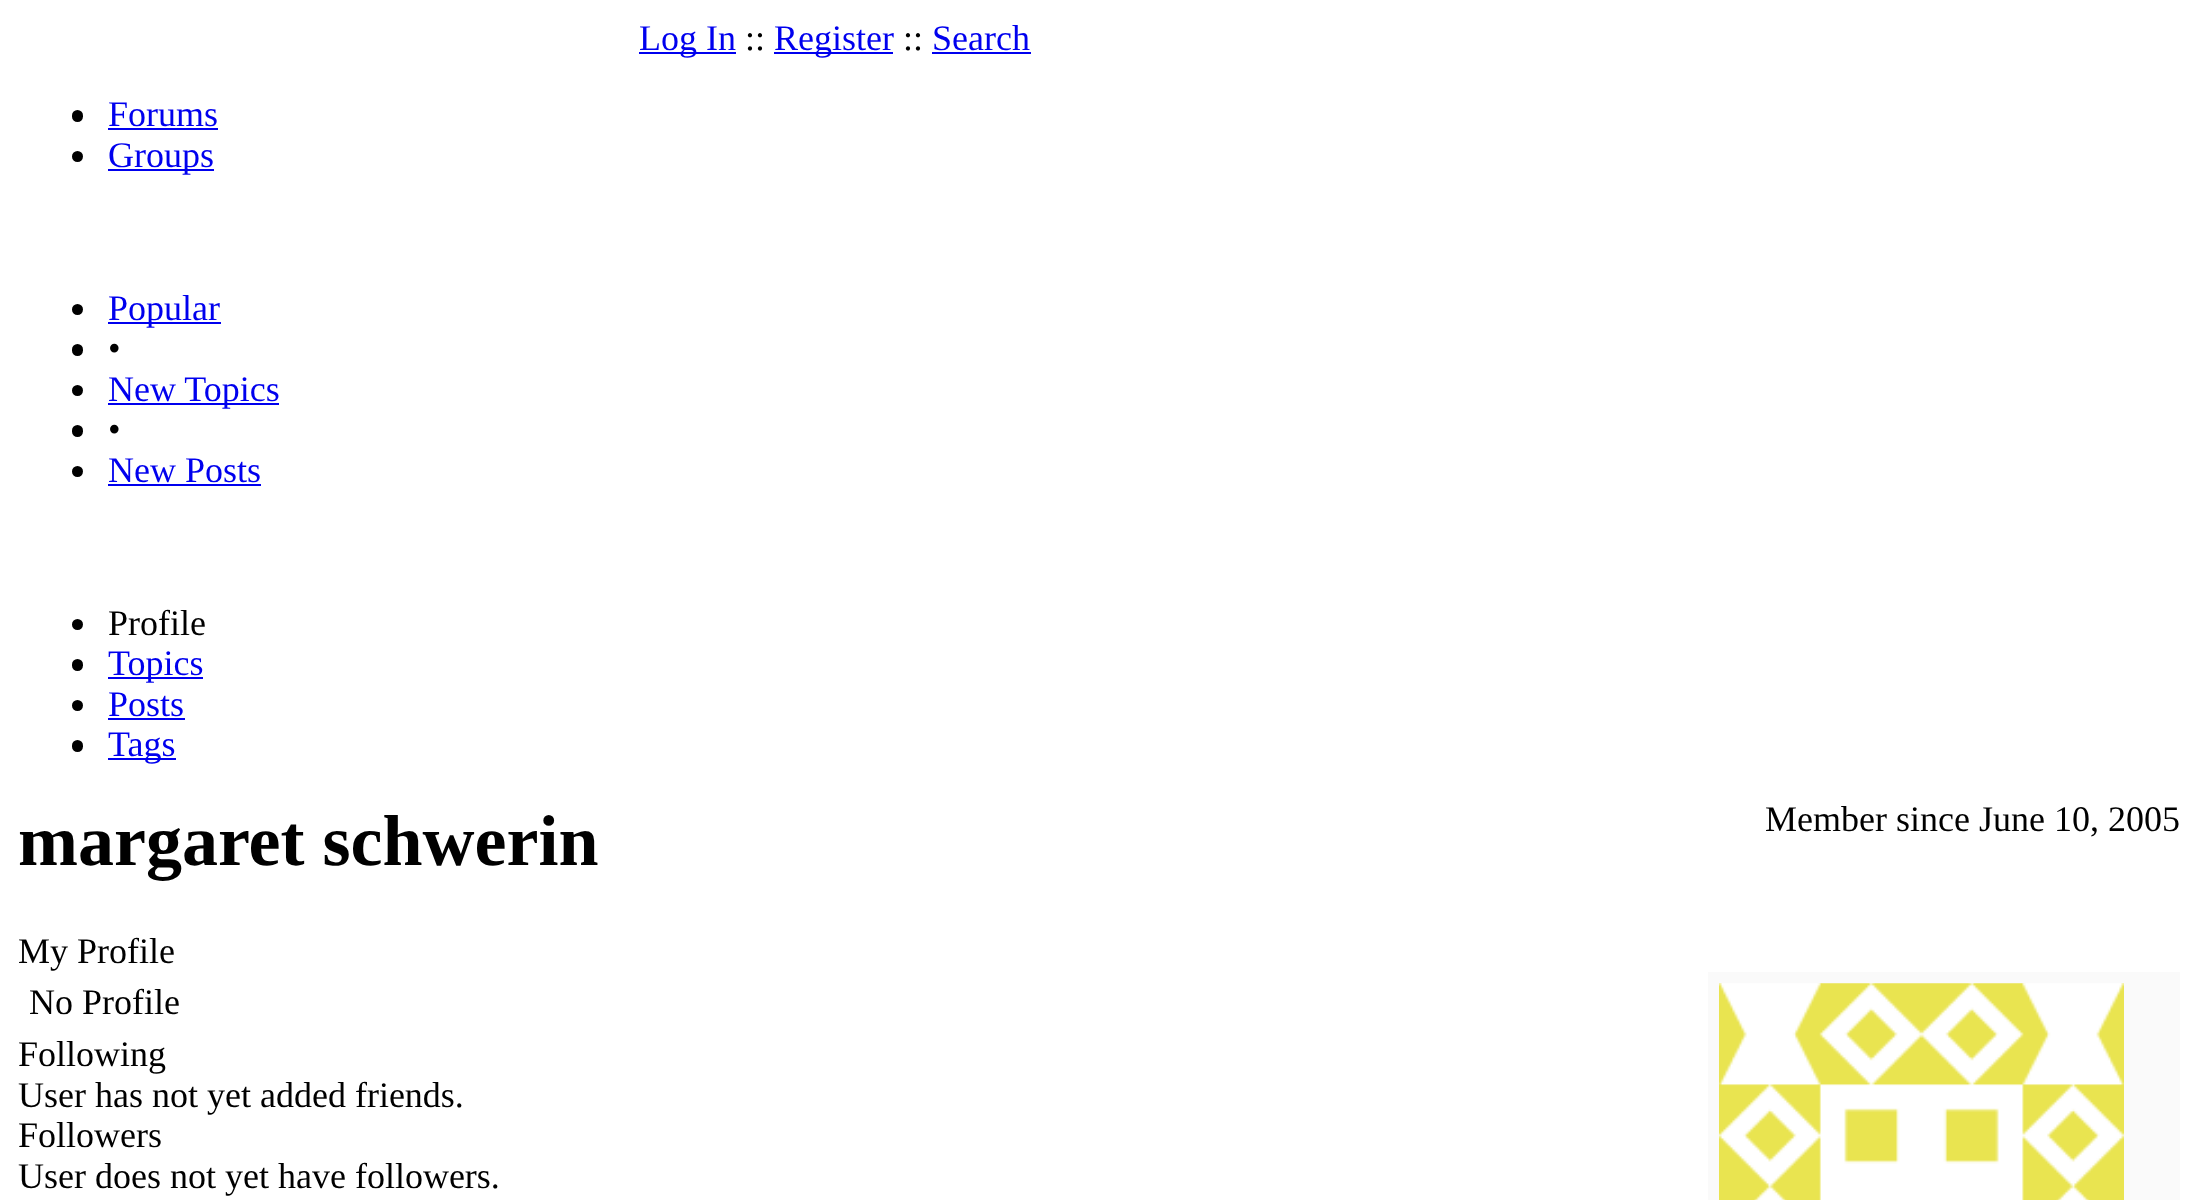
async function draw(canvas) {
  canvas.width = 2198;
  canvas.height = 1200;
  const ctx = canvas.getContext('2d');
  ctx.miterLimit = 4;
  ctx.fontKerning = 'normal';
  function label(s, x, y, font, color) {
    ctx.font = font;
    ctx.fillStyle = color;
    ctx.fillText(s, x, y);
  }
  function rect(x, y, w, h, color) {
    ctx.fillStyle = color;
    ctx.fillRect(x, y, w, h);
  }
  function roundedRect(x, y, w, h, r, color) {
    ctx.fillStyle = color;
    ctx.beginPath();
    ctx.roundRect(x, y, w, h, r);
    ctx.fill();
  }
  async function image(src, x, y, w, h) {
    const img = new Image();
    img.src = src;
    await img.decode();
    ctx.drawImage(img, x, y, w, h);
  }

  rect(0, 0, 2198, 1200, '#fff');
  rect(639, 52, 97, 2, '#00e');
  label('Log In', 639, 50, '36px Liberation Serif', '#00e');
  label('::', 745, 50, '36px Liberation Serif', '#000');
  rect(774, 52, 119, 2, '#00e');
  label('Register', 774, 50, '36px Liberation Serif', '#00e');
  label('::', 903, 50, '36px Liberation Serif', '#000');
  label('Search', 932, 50, '36px Liberation Serif', '#00e');
  rect(932, 52, 99, 2, '#00e');
  roundedRect(72, 110, 11, 12, 5.5, '#000');
  label('Forums', 108, 126, '36px Liberation Serif', '#00e');
  rect(108, 128, 110, 2, '#00e');
  ctx.fillStyle = '#000';
  ctx.beginPath();
  ctx.arc(77.5, 156.5, 5.5, 0, 2 * Math.PI);
  ctx.fill();
  rect(108, 169, 106, 2, '#00e');
  label('Groups', 108, 167, '36px Liberation Serif', '#00e');
  ctx.fillStyle = '#000';
  ctx.beginPath();
  ctx.arc(77.5, 309.5, 5.5, 0, 2 * Math.PI);
  ctx.fill();
  rect(108, 322, 113, 2, '#00e');
  label('Popular', 108, 320, '36px Liberation Serif', '#00e');
  roundedRect(72, 344, 11, 12, 5.5, '#000');
  label('•', 108, 360, '36px Liberation Serif', '#000');
  ctx.beginPath();
  ctx.arc(77.5, 390.5, 5.5, 0, 2 * Math.PI);
  ctx.fill();
  rect(108, 403, 171, 2, '#00e');
  label('New Topics', 108, 401, '36px Liberation Serif', '#00e');
  roundedRect(72, 425, 11, 12, 5.5, '#000');
  label('•', 108, 441, '36px Liberation Serif', '#000');
  ctx.beginPath();
  ctx.arc(77.5, 471.5, 5.5, 0, 2 * Math.PI);
  ctx.fill();
  label('New Posts', 108, 482, '36px Liberation Serif', '#00e');
  rect(108, 484, 153, 2, '#00e');
  ctx.fillStyle = '#000';
  ctx.beginPath();
  ctx.arc(77.5, 624.5, 5.5, 0, 2 * Math.PI);
  ctx.fill();
  label('Profile', 108, 635, '36px Liberation Serif', '#000');
  roundedRect(72, 659, 11, 12, 5.5, '#000');
  rect(108, 677, 95, 2, '#00e');
  label('Topics', 108, 675, '36px Liberation Serif', '#00e');
  ctx.fillStyle = '#000';
  ctx.beginPath();
  ctx.arc(77.5, 705.5, 5.5, 0, 2 * Math.PI);
  ctx.fill();
  label('Posts', 108, 716, '36px Liberation Serif', '#00e');
  rect(108, 718, 77, 2, '#00e');
  roundedRect(72, 740, 11, 12, 5.5, '#000');
  rect(108, 758, 68, 2, '#00e');
  label('Tags', 108, 756, '36px Liberation Serif', '#00e');
  label('margaret schwerin', 18, 865, 'bold 72px Liberation Serif', '#000');
  label('Member since June 10, 2005', 1765, 831, '36px Liberation Serif', '#000');
  label('My Profile', 18, 963, '36px Liberation Serif', '#000');
  label('No Profile', 29, 1014, '36px Liberation Serif', '#000');
  label('Following', 18, 1066, '36px Liberation Serif', '#000');
  label('User has not yet added friends.', 18, 1107, '36px Liberation Serif', '#000');
  label('Followers', 18, 1147, '36px Liberation Serif', '#000');
  label('User does not yet have followers.', 18, 1188, '36px Liberation Serif', '#000');
  rect(1708, 972, 472, 228, '#fafafa');
  await image('assets/img1.png', 1719, 983, 405, 217);
}

draw(document.querySelector('canvas'));
